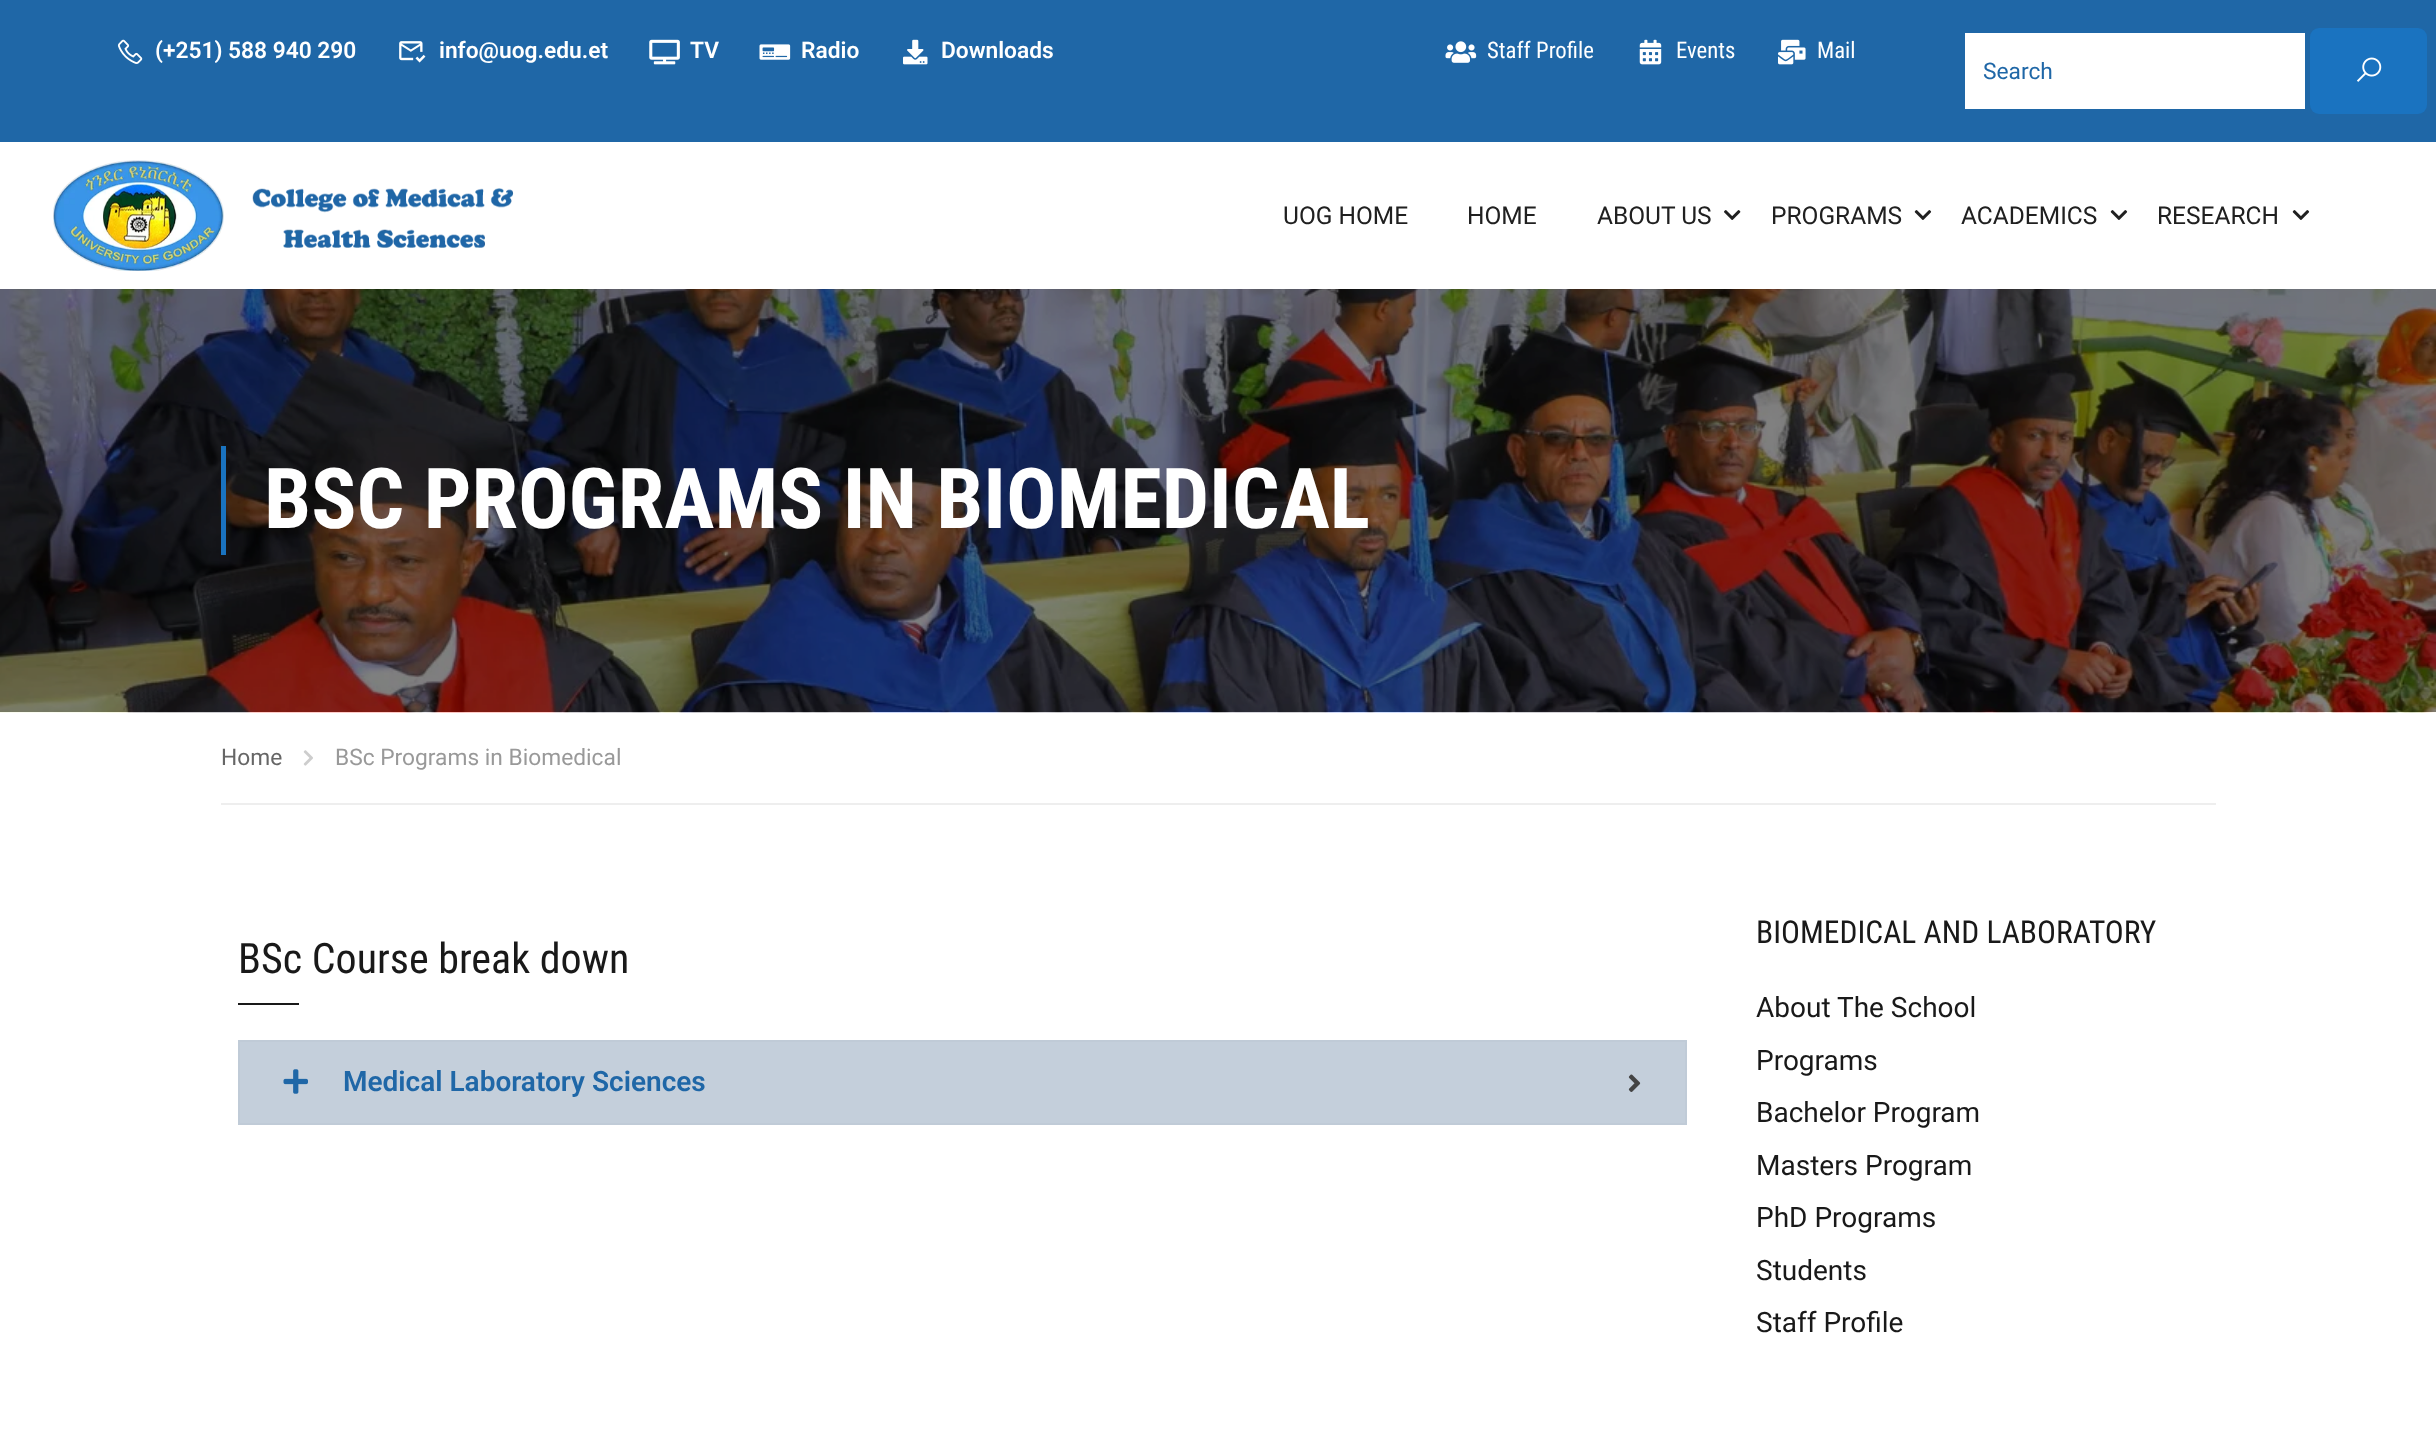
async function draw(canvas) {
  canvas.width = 2436;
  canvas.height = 1437;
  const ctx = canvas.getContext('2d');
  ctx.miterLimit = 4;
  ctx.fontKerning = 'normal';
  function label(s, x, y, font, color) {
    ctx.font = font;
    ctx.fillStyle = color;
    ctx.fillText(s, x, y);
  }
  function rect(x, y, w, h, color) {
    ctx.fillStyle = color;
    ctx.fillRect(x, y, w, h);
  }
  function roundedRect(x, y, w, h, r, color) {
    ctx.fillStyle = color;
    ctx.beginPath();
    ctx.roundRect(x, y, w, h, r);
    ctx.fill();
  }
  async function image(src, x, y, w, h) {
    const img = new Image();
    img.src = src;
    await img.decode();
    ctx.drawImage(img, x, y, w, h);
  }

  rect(0, 0, 2436, 1437, '#fff');
  rect(0, 0, 2436, 142, '#1f67a7');
  await image('assets/img1.png', 117, 39, 26, 25);
  label('(+251) 588 940 290', 155, 58, '600 22.75px Roboto', '#fff');
  await image('assets/img2.png', 399, 41, 27, 22);
  label('info@uog.edu.et', 439, 58, '600 22.75px Roboto', '#fff');
  await image('assets/img3.png', 649, 39, 31, 26);
  label('TV', 690, 58, '600 22.75px Roboto', '#fff');
  await image('assets/img4.png', 759, 44, 32, 16);
  label('Radio', 801, 58, '600 22.75px Roboto', '#fff');
  await image('assets/img5.png', 903, 39, 25, 26);
  label('Downloads', 941, 58, '600 22.75px Roboto', '#fff');
  await image('assets/img6.png', 1445, 41, 32, 22);
  label('Staff Profile', 1487, 58, '22.75px Roboto Condensed', '#fff');
  await image('assets/img7.png', 1639, 39, 23, 26);
  label('Events', 1676, 58, '22.75px Roboto Condensed', '#fff');
  await image('assets/img8.png', 1778, 39, 28, 26);
  label('Mail', 1817, 58, '22.75px Roboto Condensed', '#fff');
  rect(1965, 33, 340, 76, '#fff');
  label('Search', 1983, 79, '22.75px Roboto', '#1f67a7');
  roundedRect(2310, 28, 117, 86, 9, '#1a73c0');
  await image('assets/img9.png', 2357, 57, 25, 25);
  await image('assets/img10.png', 53, 160, 461, 111);
  label('UOG HOME', 1283, 224, '24.5px Roboto', '#202020');
  label('HOME', 1467, 224, '24.5px Roboto', '#202020');
  label('ABOUT US', 1597, 224, '24.5px Roboto', '#202020');
  await image('assets/img11.png', 1724, 210, 17, 10);
  label('PROGRAMS', 1771, 224, '24.5px Roboto', '#202020');
  await image('assets/img12.png', 1914, 210, 18, 10);
  label('ACADEMICS', 1961, 224, '24.5px Roboto', '#202020');
  await image('assets/img12.png', 2110, 210, 18, 10);
  label('RESEARCH', 2157, 224, '24.5px Roboto', '#202020');
  await image('assets/img12.png', 2292, 210, 18, 10);
  await image('assets/img13.png', 0, 289, 2436, 424);
  rect(221, 446, 5, 109, '#1a73c0');
  label('BSC PROGRAMS IN BIOMEDICAL', 264, 528, 'bold 84px Roboto Condensed', '#fff');
  rect(221, 803, 1995, 2, '#eee');
  label('Home', 221, 765, '22.75px Roboto', '#666');
  await image('assets/img14.png', 303, 750, 10, 16);
  label('BSc Programs in Biomedical', 335, 765, '22.75px Roboto', '#999');
  label('BSc Course break down', 238, 973, '42px Roboto Condensed', '#191919');
  rect(238, 1003, 61, 2, '#191919');
  ctx.fillStyle = '#c4cfdb';
  ctx.beginPath();
  ctx.rect(239, 1041, 1447, 83);
  ctx.fill();
  ctx.strokeStyle = '#c0cbd7';
  ctx.lineWidth = 2;
  ctx.stroke();
  await image('assets/img15.png', 283, 1069, 25, 25);
  label('Medical Laboratory Sciences', 343, 1091, '600 28px Roboto', '#1f67a7');
  await image('assets/img16.png', 1628, 1074, 13, 18);
  label('BIOMEDICAL AND LABORATORY', 1756, 943, '31.5px Roboto Condensed', '#191919');
  label('About The School', 1756, 1017, '28px Roboto', '#191919');
  label('Programs', 1756, 1070, '28px Roboto', '#191919');
  label('Bachelor Program', 1756, 1122, '28px Roboto', '#191919');
  label('Masters Program', 1756, 1175, '28px Roboto', '#191919');
  label('PhD Programs', 1756, 1227, '28px Roboto', '#191919');
  label('Students', 1756, 1280, '28px Roboto', '#191919');
  label('Staff Profile', 1756, 1332, '28px Roboto', '#191919');
}

draw(document.querySelector('canvas'));
